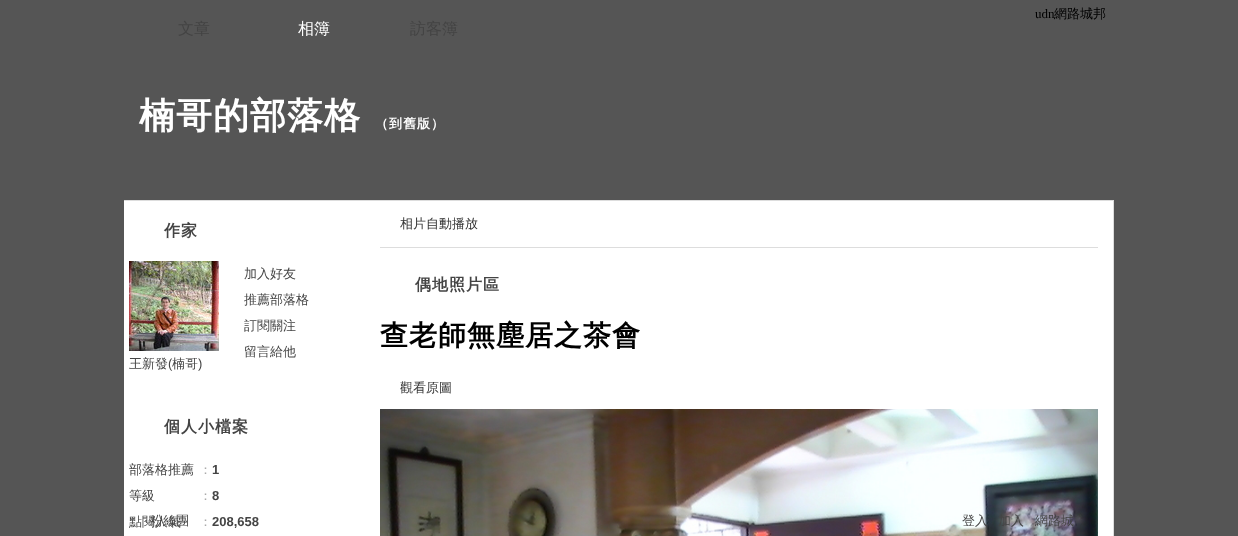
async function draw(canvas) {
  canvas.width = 1238;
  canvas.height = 536;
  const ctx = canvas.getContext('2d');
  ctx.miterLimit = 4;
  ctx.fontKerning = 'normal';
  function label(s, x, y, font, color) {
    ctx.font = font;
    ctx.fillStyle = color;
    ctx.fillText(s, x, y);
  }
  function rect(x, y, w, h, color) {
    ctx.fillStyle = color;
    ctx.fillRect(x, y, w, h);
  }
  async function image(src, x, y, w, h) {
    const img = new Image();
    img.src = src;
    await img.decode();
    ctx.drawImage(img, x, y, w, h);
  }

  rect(0, 0, 1238, 536, '#555');
  label('udn', 1035, 18, '13px Liberation Serif', '#000');
  label('網路城邦', 1054, 18, '500 13px WenQuanYi Zen Hei', '#000');
  label('文章', 178, 34, '500 16px WenQuanYi Zen Hei', '#444');
  label('相簿', 298, 34, '500 16px WenQuanYi Zen Hei', '#fff');
  label('訪客簿', 410, 34, '500 16px WenQuanYi Zen Hei', '#444');
  rect(124, 200, 990, 1, '#ddd');
  ctx.letterSpacing = '1px';
  label('楠哥的部落格', 139, 128, 'bold 36px WenQuanYi Zen Hei', '#fff');
  label('（到舊版）', 375, 128, 'bold 13px WenQuanYi Zen Hei', '#fff');
  rect(124, 201, 989, 335, '#fff');
  label('作家', 164, 236, 'bold 16px WenQuanYi Zen Hei', '#444');
  ctx.letterSpacing = '0px';
  label('加入好友', 244, 278, '500 13px WenQuanYi Zen Hei', '#444');
  label('推薦部落格', 244, 304, '500 13px WenQuanYi Zen Hei', '#444');
  label('訂閱關注', 244, 330, '500 13px WenQuanYi Zen Hei', '#444');
  label('留言給他', 244, 356, '500 13px WenQuanYi Zen Hei', '#444');
  await image('assets/img1.png', 129, 261, 90, 90);
  label('王新發', 129, 368, '500 13px WenQuanYi Zen Hei', '#444');
  label('(', 168, 368, '13px Liberation Sans', '#444');
  label('楠哥', 172, 368, '500 13px WenQuanYi Zen Hei', '#444');
  label(')', 198, 368, '13px Liberation Sans', '#444');
  ctx.letterSpacing = '1px';
  label('個人小檔案', 164, 432, 'bold 16px WenQuanYi Zen Hei', '#444');
  ctx.letterSpacing = '0px';
  label('部落格推薦', 129, 474, '500 13px WenQuanYi Zen Hei', '#444');
  label('：', 199, 474, '500 13px WenQuanYi Zen Hei', '#aaa');
  label('1', 212, 474, 'bold 13px Liberation Sans', '#444');
  label('等級', 129, 500, '500 13px WenQuanYi Zen Hei', '#444');
  label('：', 199, 500, '500 13px WenQuanYi Zen Hei', '#aaa');
  label('8', 212, 500, 'bold 13px Liberation Sans', '#444');
  label('點閱人氣', 129, 526, '500 13px WenQuanYi Zen Hei', '#444');
  label('：', 199, 526, '500 13px WenQuanYi Zen Hei', '#aaa');
  label('208,658', 212, 526, 'bold 13px Liberation Sans', '#444');
  rect(1113, 201, 1, 335, '#ddd');
  rect(380, 247, 718, 1, '#ddd');
  label('相片自動播放', 400, 228, '500 13px WenQuanYi Zen Hei', '#333');
  ctx.letterSpacing = '1px';
  label('偶地照片區', 415, 290, 'bold 16px WenQuanYi Zen Hei', '#444');
  label('查老師無塵居之茶會', 380, 345, 'bold 28px WenQuanYi Zen Hei', '#000');
  ctx.letterSpacing = '0px';
  label('觀看原圖', 400, 392, '500 13px WenQuanYi Zen Hei', '#333');
  await image('assets/img2.png', 380, 409, 718, 127);
  label('粉絲團', 150, 525, '500 13px WenQuanYi Zen Hei', '#444');
  label('登入', 962, 525, '500 13px WenQuanYi Zen Hei', '#444');
  label('加入', 998, 525, '500 13px WenQuanYi Zen Hei', '#444');
  label('網路城', 1035, 525, '500 13px WenQuanYi Zen Hei', '#444');
}

draw(document.querySelector('canvas'));
